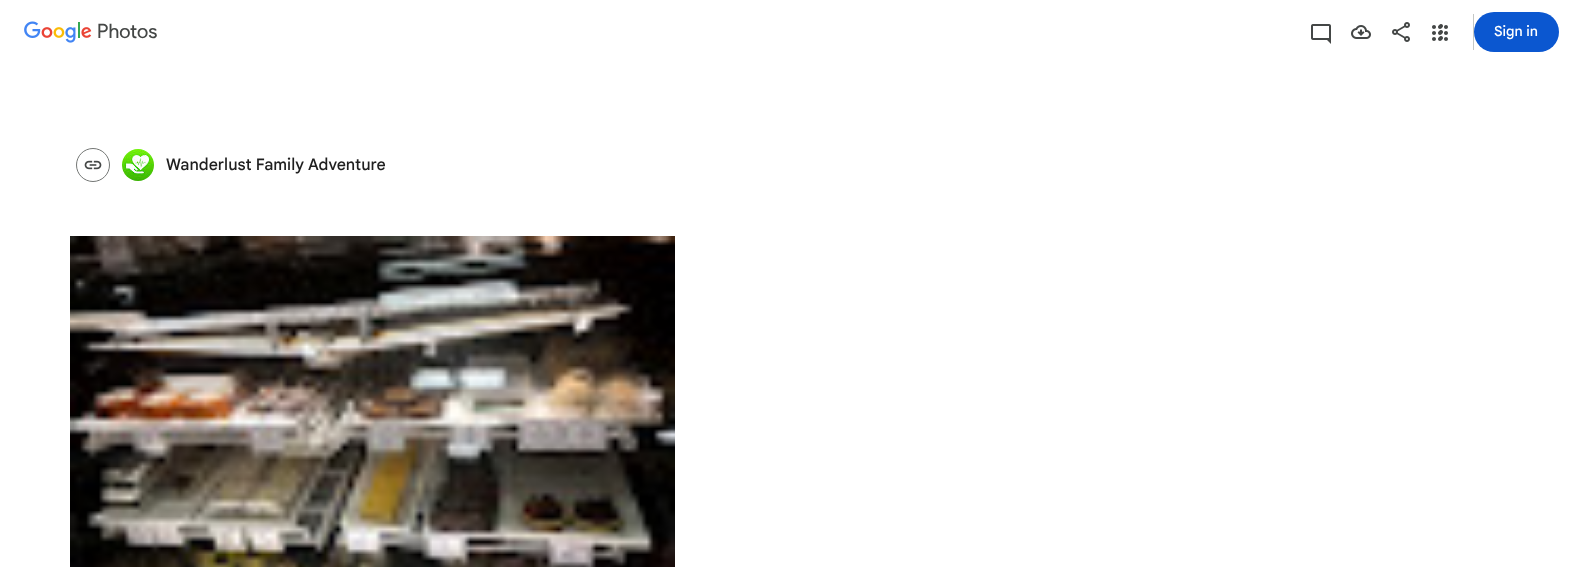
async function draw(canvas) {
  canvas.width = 1595;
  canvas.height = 567;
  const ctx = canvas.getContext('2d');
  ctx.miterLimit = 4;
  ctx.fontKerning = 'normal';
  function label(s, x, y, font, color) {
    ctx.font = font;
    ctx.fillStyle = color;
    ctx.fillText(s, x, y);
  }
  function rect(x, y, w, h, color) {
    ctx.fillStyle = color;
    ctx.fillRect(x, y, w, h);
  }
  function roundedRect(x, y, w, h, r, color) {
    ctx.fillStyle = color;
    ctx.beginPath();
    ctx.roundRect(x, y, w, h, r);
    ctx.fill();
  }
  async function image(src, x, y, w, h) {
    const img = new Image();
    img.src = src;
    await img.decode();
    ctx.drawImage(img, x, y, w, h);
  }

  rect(0, 0, 1595, 567, '#fff');
  await image('assets/img1.png', 24, 21, 68, 22);
  label('Photos', 97, 38, '20px Product Sans', '#444746');
  await image('assets/img2.png', 1311, 24, 20, 20);
  await image('assets/img3.png', 1351, 25, 20, 14);
  await image('assets/img4.png', 1392, 22, 18, 20);
  await image('assets/img5.png', 1439, 24, 4, 16);
  rect(1473, 14, 1, 36, '#c4c7c5');
  ctx.beginPath();
  ctx.arc(93, 165, 16.5, 0, 2 * Math.PI);
  ctx.strokeStyle = '#747775';
  ctx.stroke();
  await image('assets/img6.png', 84, 160, 18, 10);
  await image('assets/img7.png', 122, 149, 32, 32);
  label('Wanderlust Family Adventure', 166, 170, '500 16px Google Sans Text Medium', '#1f1f1f');
  await image('assets/img8.png', 70, 236, 605, 331);
  await image('assets/img9.png', 1432, 25, 16, 16);
  roundedRect(1474, 12, 85, 40, 20, '#0b57d0');
  label('Sign in', 1494, 36, '500 14px Google Sans Text Medium', '#fff');
}

draw(document.querySelector('canvas'));
